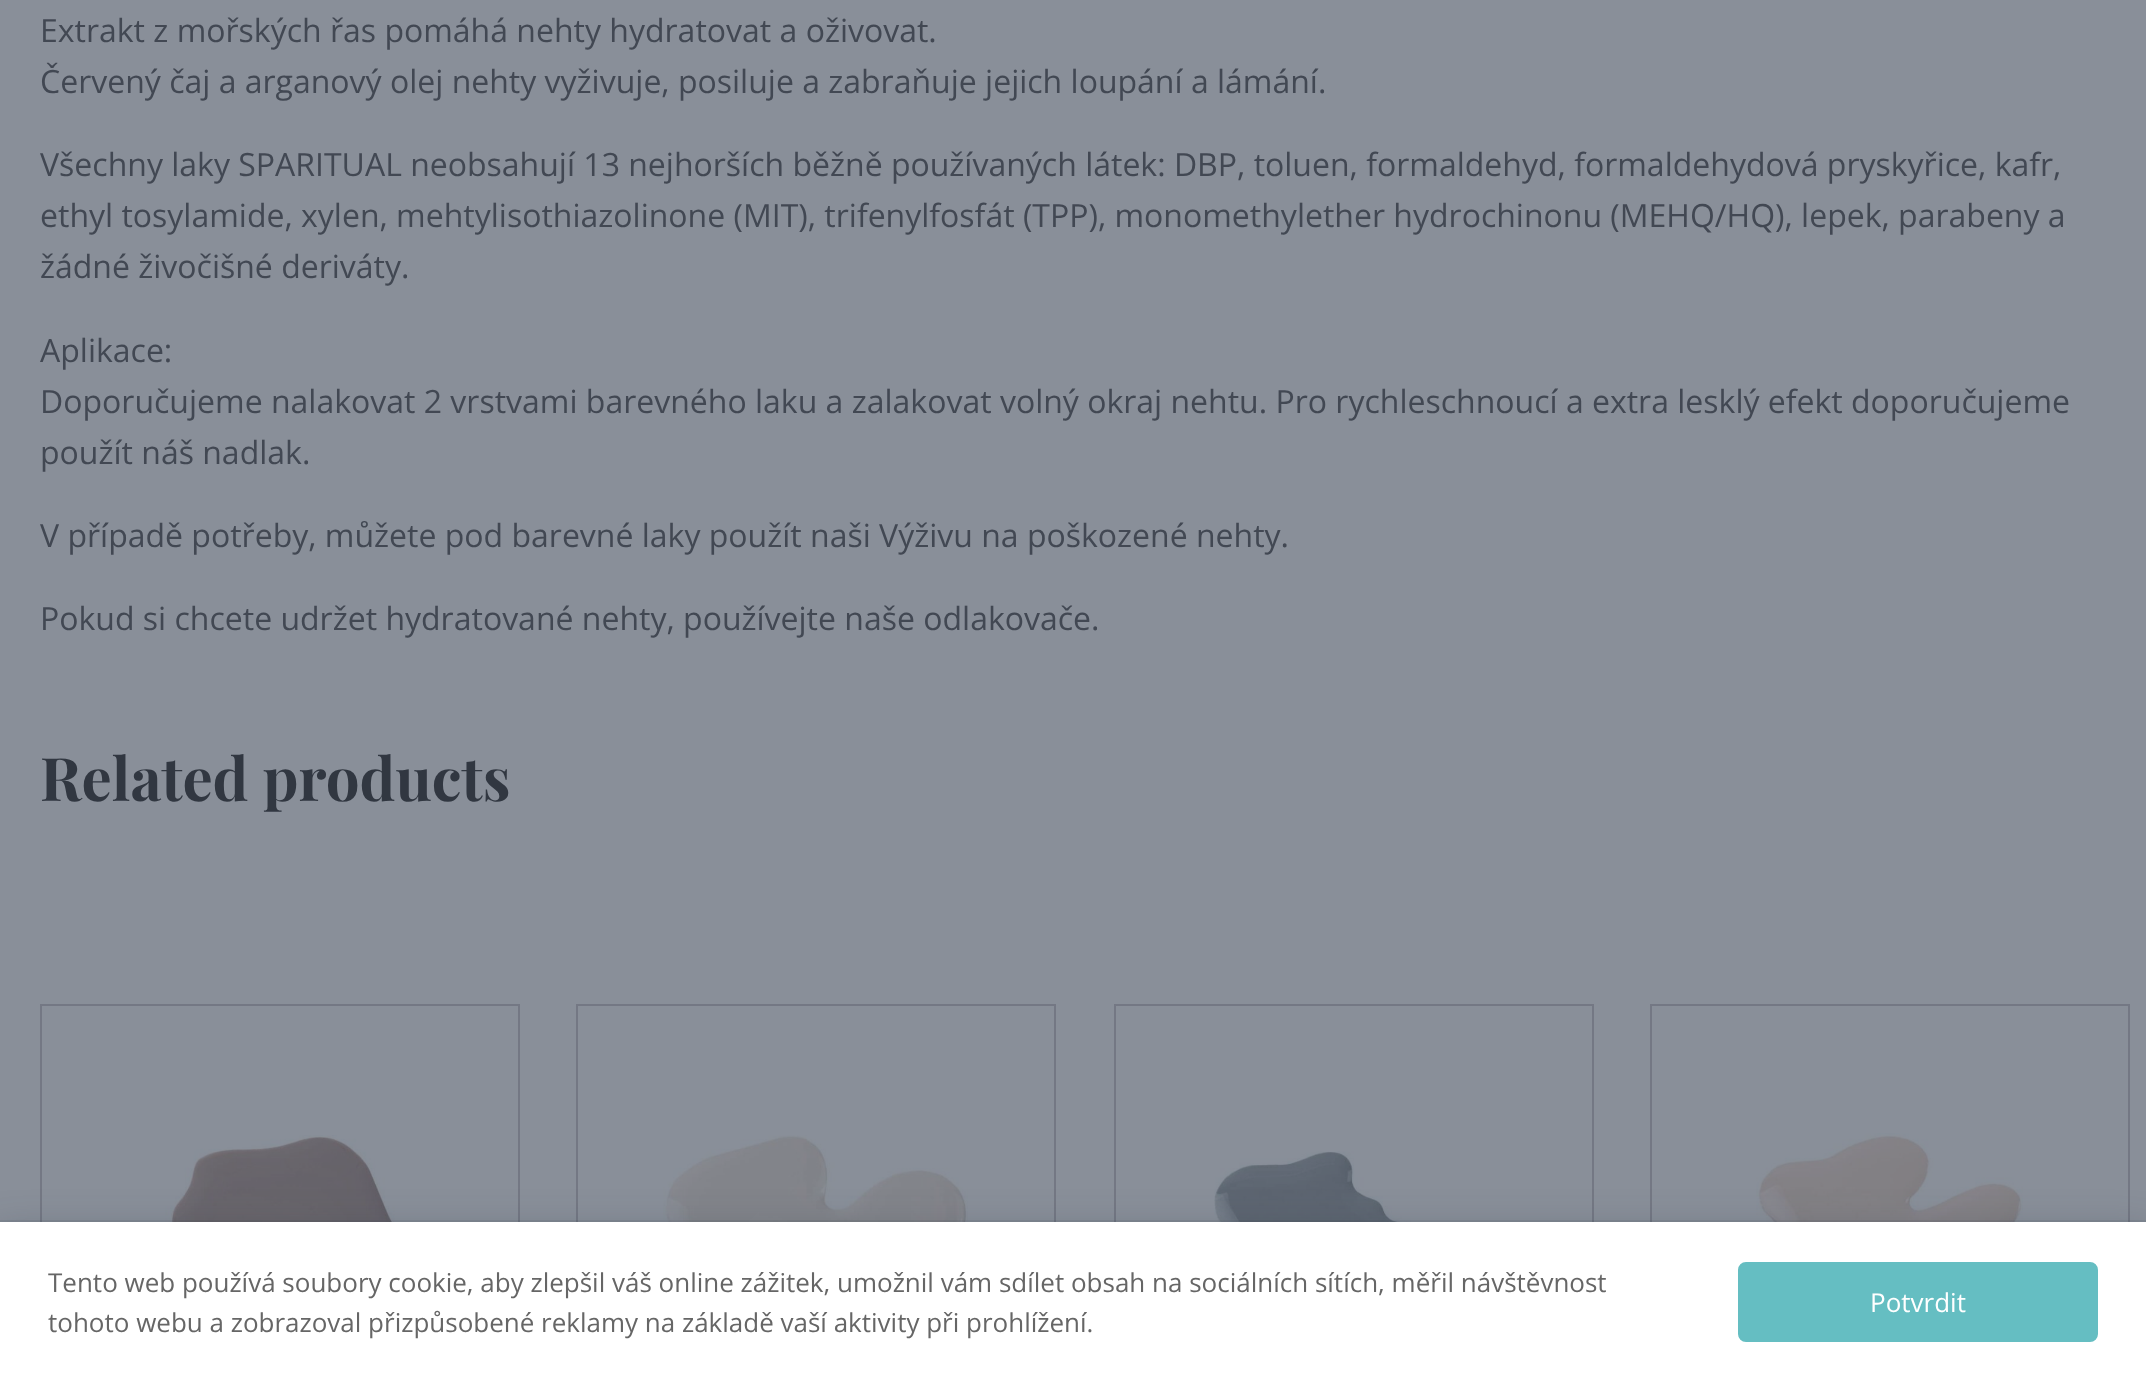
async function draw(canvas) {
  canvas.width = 2146;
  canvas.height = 1382;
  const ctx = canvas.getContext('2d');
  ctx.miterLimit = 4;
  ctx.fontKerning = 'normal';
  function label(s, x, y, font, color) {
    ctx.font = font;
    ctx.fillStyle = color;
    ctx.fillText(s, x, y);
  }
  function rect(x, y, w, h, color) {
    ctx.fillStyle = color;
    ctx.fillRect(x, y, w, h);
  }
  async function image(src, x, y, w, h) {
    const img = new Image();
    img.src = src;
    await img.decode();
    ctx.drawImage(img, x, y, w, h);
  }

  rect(0, 0, 2146, 1382, '#898f99');
  label('Extrakt z mořských řas pomáhá nehty hydratovat a oživovat.', 40, 42, '32px Open Sans', '#424853');
  label('Červený čaj a arganový olej nehty vyživuje, posiluje a zabraňuje jejich loupání a lámání.', 40, 93, '32px Open Sans', '#424853');
  label('Všechny laky SPARITUAL neobsahují 13 nejhorších běžně používaných látek: DBP, toluen, formaldehyd, formaldehydová pryskyřice, kafr,', 40, 176, '32px Open Sans', '#424853');
  label('ethyl tosylamide, xylen, mehtylisothiazolinone (MIT), trifenylfosfát (TPP), monomethylether hydrochinonu (MEHQ/HQ), lepek, parabeny a', 40, 227, '32px Open Sans', '#424853');
  label('žádné živočišné deriváty.', 40, 278, '32px Open Sans', '#424853');
  label('Aplikace:', 40, 362, '32px Open Sans', '#424853');
  label('Doporučujeme nalakovat 2 vrstvami barevného laku a zalakovat volný okraj nehtu. Pro rychleschnoucí a extra lesklý efekt doporučujeme', 40, 413, '32px Open Sans', '#424853');
  label('použít náš nadlak.', 40, 464, '32px Open Sans', '#424853');
  label('V případě potřeby, můžete pod barevné laky použít naši Výživu na poškozené nehty.', 40, 547, '32px Open Sans', '#424853');
  label('Pokud si chcete udržet hydratované nehty, používejte naše odlakovače.', 40, 630, '32px Open Sans', '#424853');
  label('Related products', 40, 801, 'bold 60px Playfair Display', '#313741');
  ctx.strokeStyle = '#747884';
  ctx.lineWidth = 2;
  ctx.strokeRect(41, 1005, 478, 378);
  await image('assets/img1.png', 118, 1135, 311, 87);
  ctx.strokeRect(577, 1005, 478, 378);
  await image('assets/img2.png', 663, 1135, 305, 87);
  ctx.strokeRect(1115, 1005, 478, 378);
  await image('assets/img3.png', 1214, 1151, 281, 71);
  ctx.strokeRect(1651, 1005, 478, 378);
  await image('assets/img4.png', 1756, 1133, 267, 89);
  ctx.fillStyle = '#242f424f';
  ctx.filter = 'blur(20px)';
  ctx.beginPath();
  ctx.rect(-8, 1234, 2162, 136);
  ctx.fill();
  ctx.filter = 'none';
  ctx.strokeStyle = '#242f4214';
  ctx.strokeRect(-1, 1221, 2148, 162);
  rect(0, 1222, 2146, 160, '#fff');
  label('Tento web používá soubory cookie, aby zlepšil váš online zážitek, umožnil vám sdílet obsah na sociálních sítích, měřil návštěvnost', 48, 1292, '26px Open Sans', '#666');
  label('tohoto webu a zobrazoval přizpůsobené reklamy na základě vaší aktivity při prohlížení.', 48, 1332, '26px Open Sans', '#666');
  ctx.fillStyle = '#65bec2';
  ctx.beginPath();
  ctx.roundRect(1739, 1263, 358, 78, 7);
  ctx.fill();
  ctx.strokeStyle = '#65bec2';
  ctx.stroke();
  label('Potvrdit', 1870, 1312, '26px Open Sans', '#fff');
}

draw(document.querySelector('canvas'));
